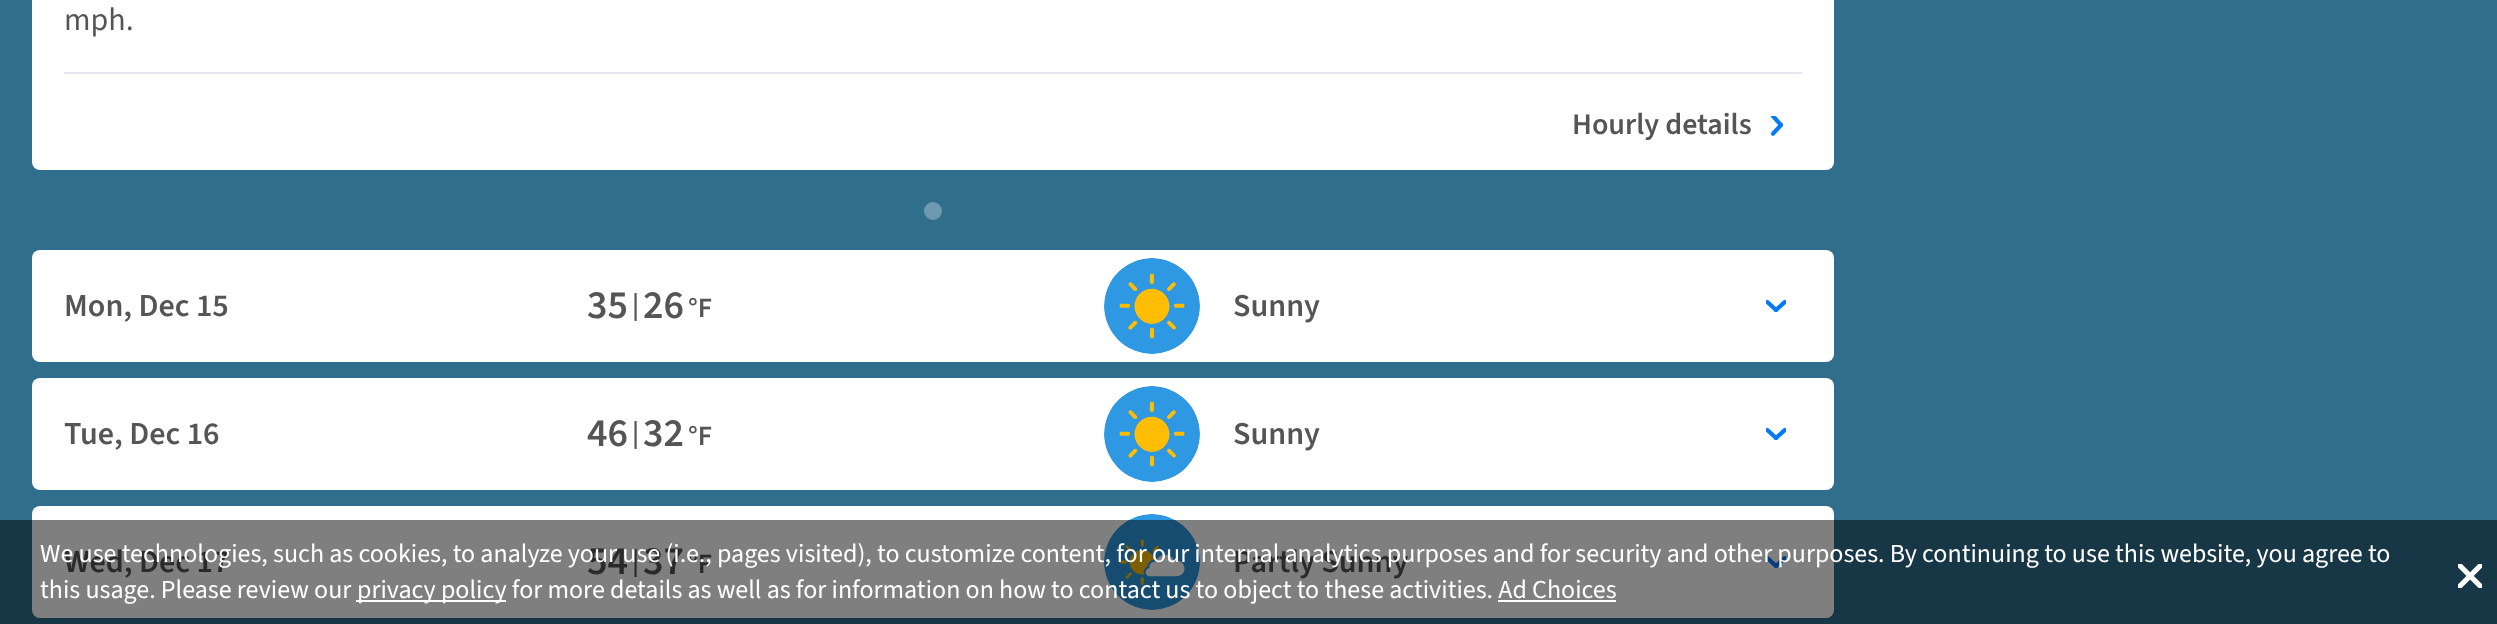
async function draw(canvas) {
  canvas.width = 2497;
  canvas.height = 624;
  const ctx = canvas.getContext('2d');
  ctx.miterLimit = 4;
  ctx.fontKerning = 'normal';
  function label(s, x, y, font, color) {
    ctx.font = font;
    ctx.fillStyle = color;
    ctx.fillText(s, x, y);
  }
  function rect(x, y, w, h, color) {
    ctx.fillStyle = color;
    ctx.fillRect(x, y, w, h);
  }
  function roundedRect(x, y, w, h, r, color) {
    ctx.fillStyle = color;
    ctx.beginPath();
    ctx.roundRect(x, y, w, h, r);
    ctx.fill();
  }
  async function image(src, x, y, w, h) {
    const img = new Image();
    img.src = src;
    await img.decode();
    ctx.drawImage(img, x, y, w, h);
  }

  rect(0, 0, 2497, 624, '#2f6f8c');
  roundedRect(32, -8, 1802, 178, 8, '#fff');
  rect(64, 72, 1738, 2, '#e6e7f0');
  label('mph.', 64, 30, '32px "Source Sans 3"', '#555');
  label('Hourly details', 1572, 134, '600 30px "Source Sans 3"', '#555');
  await image('assets/img1.png', 1771, 116, 12, 20);
  ctx.fillStyle = '#6d9aaf';
  ctx.beginPath();
  ctx.arc(933, 211, 9, 0, 2 * Math.PI);
  ctx.fill();
  roundedRect(32, 250, 1802, 112, 8, '#fff');
  label('Mon, Dec 15', 64, 316, '600 32px "Source Sans 3"', '#555');
  label('35', 587, 318, '600 40px "Source Sans 3"', '#555');
  label('|', 632, 314, '600 28px "Source Sans 3"', '#555');
  label('26', 643, 318, '600 40px "Source Sans 3"', '#555');
  label('°F', 688, 317, '600 28px "Source Sans 3"', '#555');
  await image('assets/img2.png', 1104, 258, 96, 96);
  label('Sunny', 1233, 316, '600 32px "Source Sans 3"', '#555');
  await image('assets/img3.png', 1766, 300, 20, 12);
  roundedRect(32, 378, 1802, 112, 8, '#fff');
  label('Tue, Dec 16', 64, 444, '600 32px "Source Sans 3"', '#555');
  label('46', 587, 446, '600 40px "Source Sans 3"', '#555');
  label('|', 632, 442, '600 28px "Source Sans 3"', '#555');
  label('32', 643, 446, '600 40px "Source Sans 3"', '#555');
  label('°F', 688, 445, '600 28px "Source Sans 3"', '#555');
  await image('assets/img4.png', 1104, 386, 96, 96);
  label('Sunny', 1233, 444, '600 32px "Source Sans 3"', '#555');
  await image('assets/img3.png', 1766, 428, 20, 12);
  roundedRect(32, 506, 1802, 112, 8, '#fff');
  label('Wed, Dec 17', 64, 572, '600 32px "Source Sans 3"', '#555');
  label('54', 587, 574, '600 40px "Source Sans 3"', '#555');
  label('|', 632, 570, '600 28px "Source Sans 3"', '#555');
  label('37', 643, 574, '600 40px "Source Sans 3"', '#555');
  label('°F', 688, 573, '600 28px "Source Sans 3"', '#555');
  await image('assets/img5.png', 1104, 514, 96, 96);
  label('Partly Sunny', 1233, 572, '600 32px "Source Sans 3"', '#555');
  await image('assets/img3.png', 1766, 556, 20, 12);
  rect(0, 520, 2497, 104, '#00000080');
  label('We use technologies, such as cookies, to analyze your use (i.e., pages visited), to customize content, for our internal analytics purposes and for security and other purposes. By continuing to use this website, you agree to', 40, 562, '26px "Source Sans 3"', '#fff');
  label('this usage. Please review our', 40, 598, '26px "Source Sans 3"', '#fff');
  rect(356, 600, 150, 2, '#fff');
  label('privacy policy for more details as well as for information on how to contact us to object to these activities. Ad Choices', 357, 598, '26px "Source Sans 3"', '#fff');
  rect(1498, 600, 118, 2, '#fff');
  await image('assets/img6.png', 2458, 564, 24, 24);
}

draw(document.querySelector('canvas'));
